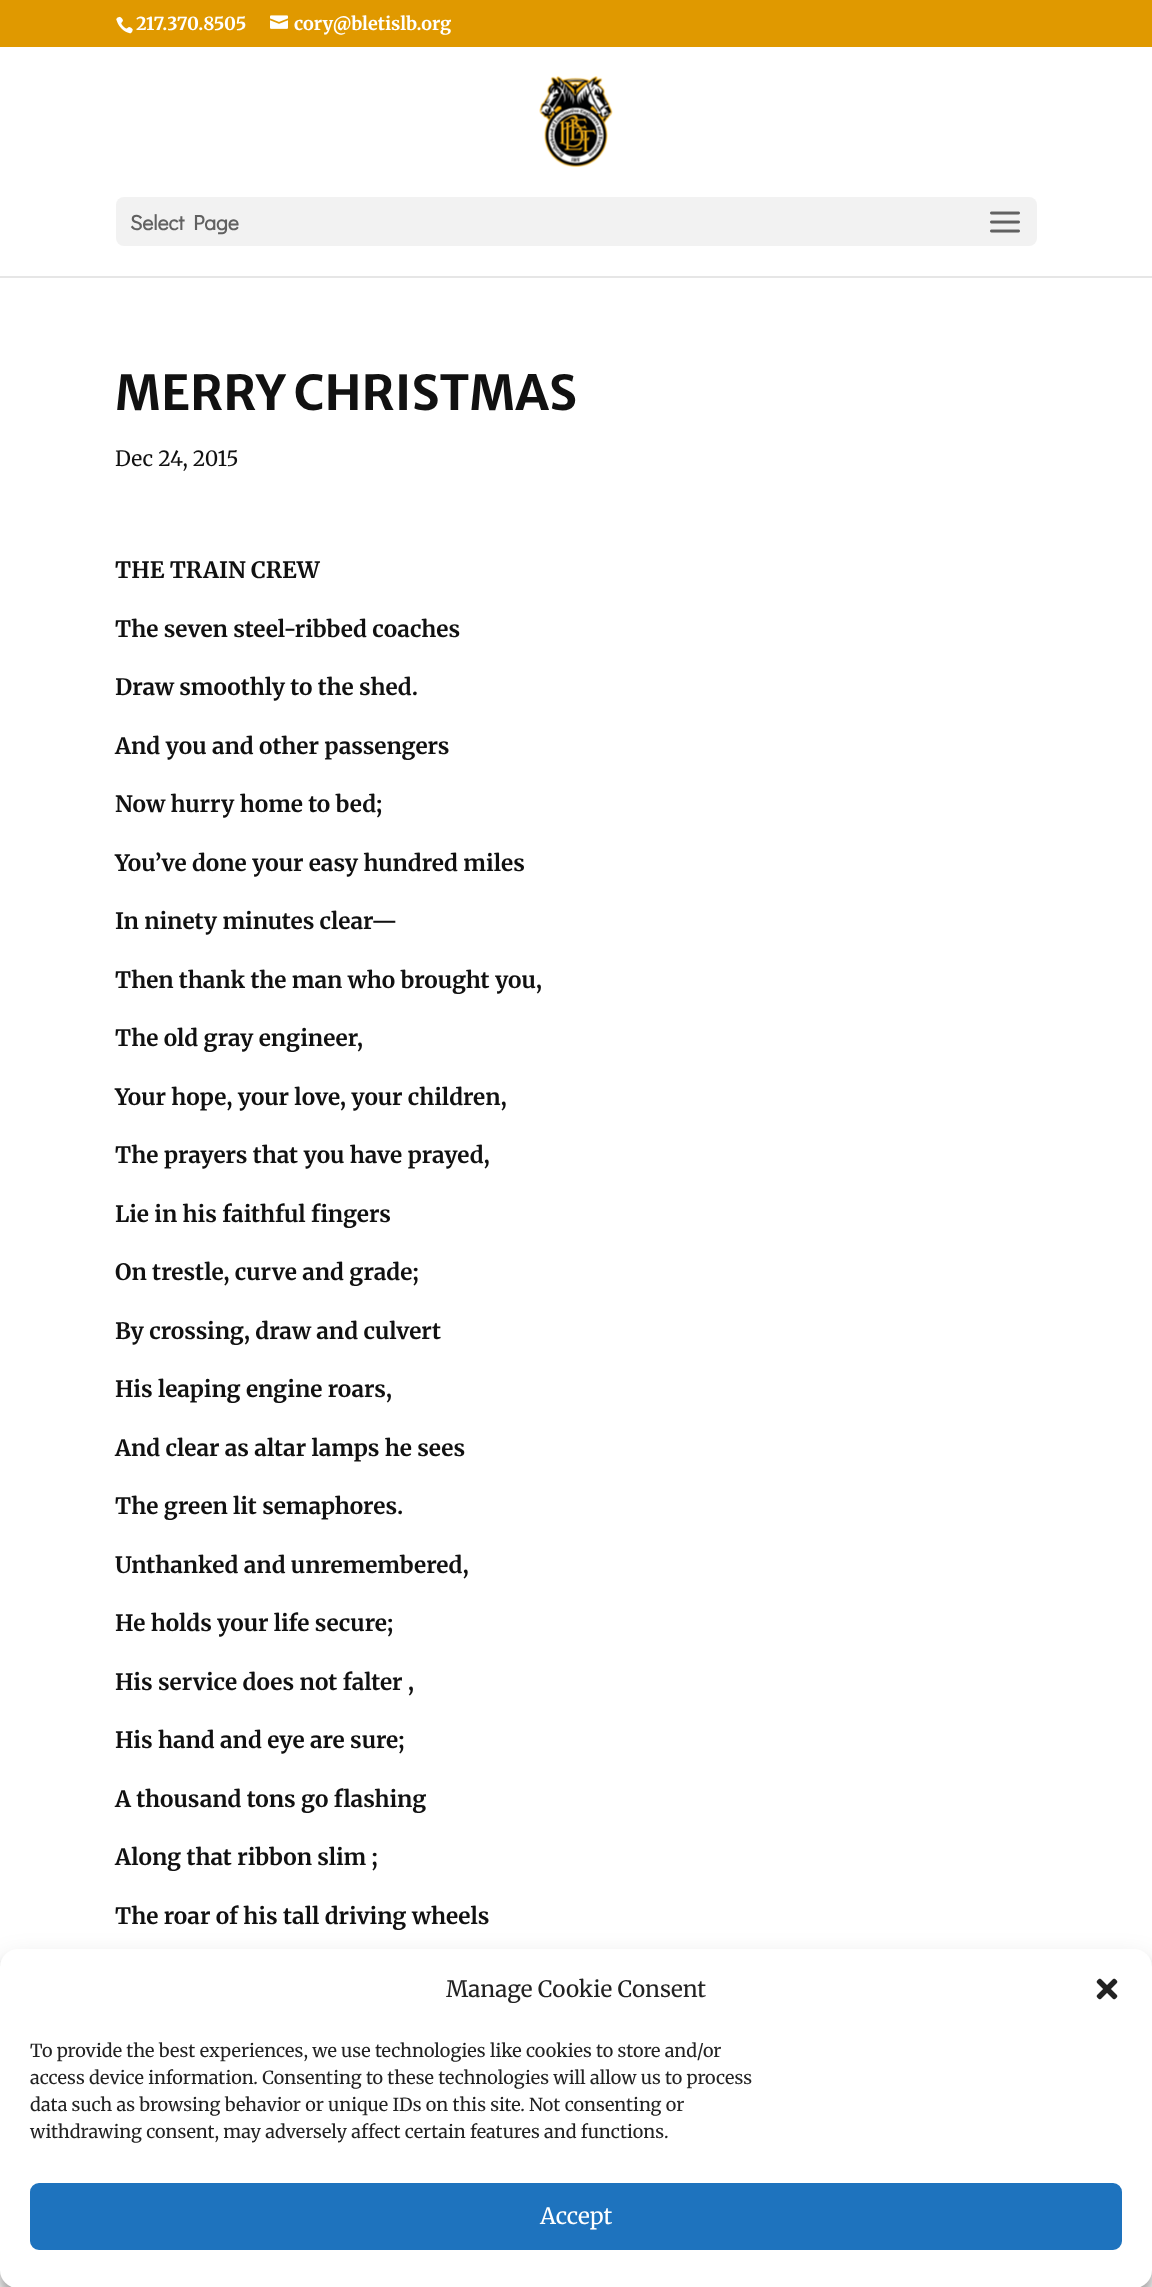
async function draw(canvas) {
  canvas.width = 1152;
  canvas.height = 2287;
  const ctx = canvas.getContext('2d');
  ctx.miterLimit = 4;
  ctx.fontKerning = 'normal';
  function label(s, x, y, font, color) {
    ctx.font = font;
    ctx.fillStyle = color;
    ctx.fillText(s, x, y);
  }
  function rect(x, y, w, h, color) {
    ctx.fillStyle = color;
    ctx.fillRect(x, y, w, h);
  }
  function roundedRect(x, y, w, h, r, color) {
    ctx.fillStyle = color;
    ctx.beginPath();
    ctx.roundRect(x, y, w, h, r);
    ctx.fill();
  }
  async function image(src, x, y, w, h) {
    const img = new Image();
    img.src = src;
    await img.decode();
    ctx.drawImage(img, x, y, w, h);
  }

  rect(0, 0, 1152, 2287, '#e09900');
  await image('assets/img1.png', 116, 16, 17, 18);
  label('217.370.8505', 136, 30, 'bold 18px Merriweather', '#fff');
  await image('assets/img2.png', 270, 15, 18, 14);
  label('cory@bletislb.org', 294, 30, 'bold 18px Merriweather', '#fff');
  rect(0, 276, 1152, 2, '#e6e6e6');
  rect(0, 47, 1152, 229, '#fff');
  await image('assets/img3.png', 539, 76, 74, 91);
  roundedRect(116, 197, 921, 49, 8, '#f2f2f2');
  label('Select Page', 130, 230, 'bold 21px Didact Gothic', '#616161');
  await image('assets/img4.png', 990, 211, 30, 22);
  rect(0, 278, 1152, 2009, '#fff');
  label('MERRY CHRISTMAS', 115, 410, 'bold 48px Merriweather Sans', '#111');
  label('Dec 24, 2015', 115, 466, '21px Merriweather', '#111');
  label('THE TRAIN CREW', 115, 578, 'bold 22.5px Merriweather', '#111');
  label('The seven steel-ribbed coaches', 115, 637, 'bold 22.5px Merriweather', '#111');
  label('Draw smoothly to the shed.', 115, 695, 'bold 22.5px Merriweather', '#111');
  label('And you and other passengers', 115, 754, 'bold 22.5px Merriweather', '#111');
  label('Now hurry home to bed;', 115, 812, 'bold 22.5px Merriweather', '#111');
  label('You’ve done your easy hundred miles', 115, 871, 'bold 22.5px Merriweather', '#111');
  label('In ninety minutes clear—', 115, 929, 'bold 22.5px Merriweather', '#111');
  label('Then thank the man who brought you,', 115, 988, 'bold 22.5px Merriweather', '#111');
  label('The old gray engineer,', 115, 1046, 'bold 22.5px Merriweather', '#111');
  label('Your hope, your love, your children,', 115, 1105, 'bold 22.5px Merriweather', '#111');
  label('The prayers that you have prayed,', 115, 1163, 'bold 22.5px Merriweather', '#111');
  label('Lie in his faithful fingers', 115, 1222, 'bold 22.5px Merriweather', '#111');
  label('On trestle, curve and grade;', 115, 1280, 'bold 22.5px Merriweather', '#111');
  label('By crossing, draw and culvert', 115, 1339, 'bold 22.5px Merriweather', '#111');
  label('His leaping engine roars,', 115, 1397, 'bold 22.5px Merriweather', '#111');
  label('And clear as altar lamps he sees', 115, 1456, 'bold 22.5px Merriweather', '#111');
  label('The green lit semaphores.', 115, 1514, 'bold 22.5px Merriweather', '#111');
  label('Unthanked and unremembered,', 115, 1573, 'bold 22.5px Merriweather', '#111');
  label('He holds your life secure;', 115, 1631, 'bold 22.5px Merriweather', '#111');
  label('His service does not falter ,', 115, 1690, 'bold 22.5px Merriweather', '#111');
  label('His hand and eye are sure;', 115, 1748, 'bold 22.5px Merriweather', '#111');
  label('A thousand tons go flashing', 115, 1807, 'bold 22.5px Merriweather', '#111');
  label('Along that ribbon slim ;', 115, 1865, 'bold 22.5px Merriweather', '#111');
  label('The roar of his tall driving wheels', 115, 1924, 'bold 22.5px Merriweather', '#111');
  ctx.fillStyle = '#0000003b';
  ctx.filter = 'blur(4.5px)';
  ctx.beginPath();
  ctx.roundRect(0, 1958, 1152, 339, 18);
  ctx.fill();
  ctx.filter = 'none';
  ctx.fillStyle = '#00000030';
  ctx.filter = 'blur(15px)';
  ctx.beginPath();
  ctx.roundRect(0, 1964, 1152, 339, 18);
  ctx.fill();
  ctx.filter = 'none';
  roundedRect(0, 1949, 1152, 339, 18, '#fff');
  label('Manage Cookie Consent', 446, 1997, '22.5px Merriweather', '#222');
  await image('assets/img5.png', 1096, 1978, 22, 22);
  label('To provide the best experiences, we use technologies like cookies to store and/or', 30, 2057, '18px Merriweather', '#222');
  label('access device information. Consenting to these technologies will allow us to process', 30, 2084, '18px Merriweather', '#222');
  label('data such as browsing behavior or unique IDs on this site. Not consenting or', 30, 2111, '18px Merriweather', '#222');
  label('withdrawing consent, may adversely affect certain features and functions.', 30, 2138, '18px Merriweather', '#222');
  ctx.fillStyle = '#1e73be';
  ctx.beginPath();
  ctx.roundRect(31, 2184, 1090, 65, 8);
  ctx.fill();
  ctx.strokeStyle = '#1e73be';
  ctx.lineWidth = 2;
  ctx.stroke();
  label('Accept', 540, 2224, '22.5px Merriweather', '#fff');
}

draw(document.querySelector('canvas'));
